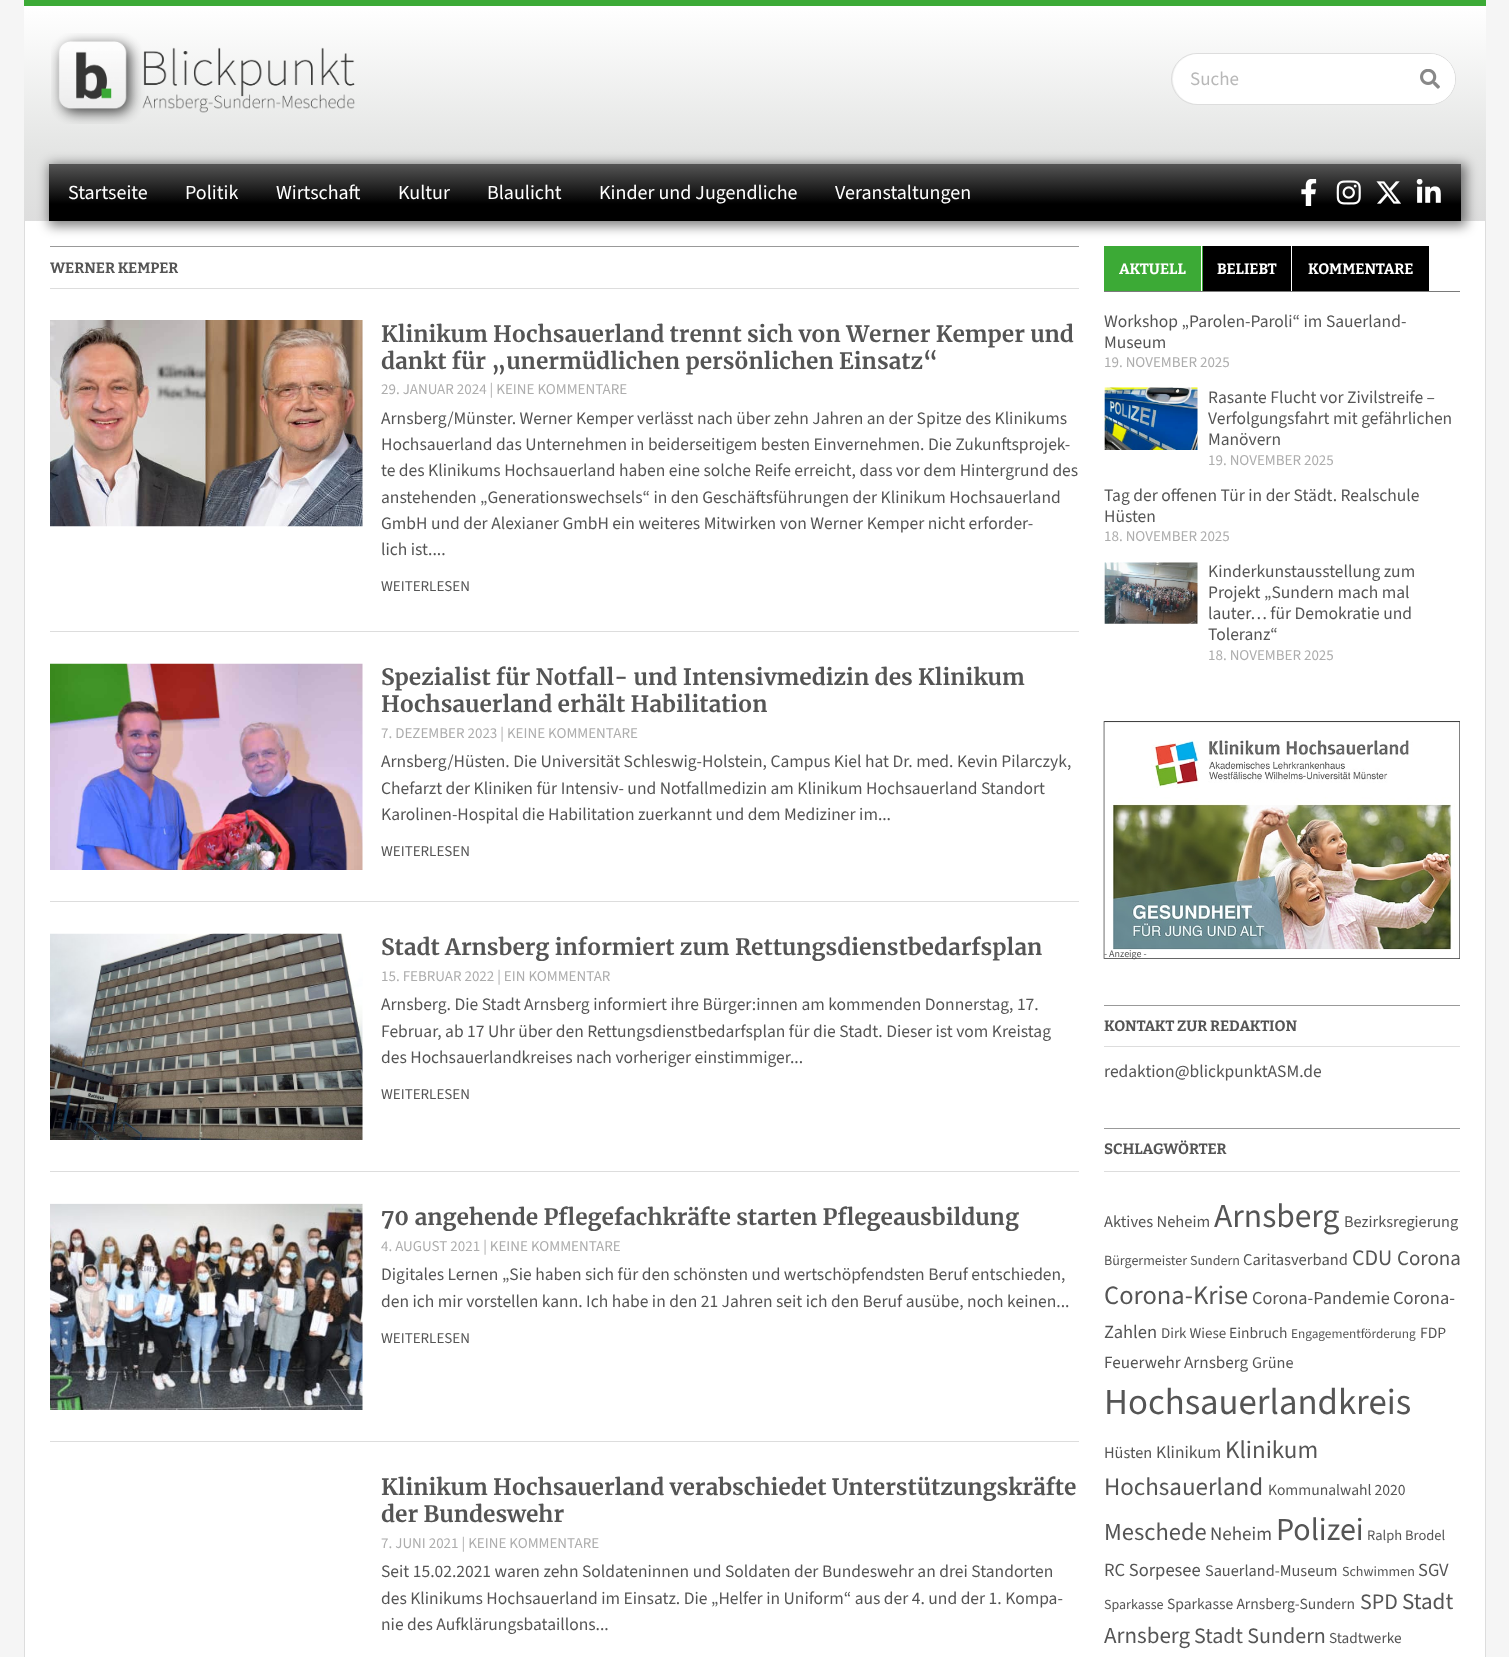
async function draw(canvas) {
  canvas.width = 1509;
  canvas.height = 1657;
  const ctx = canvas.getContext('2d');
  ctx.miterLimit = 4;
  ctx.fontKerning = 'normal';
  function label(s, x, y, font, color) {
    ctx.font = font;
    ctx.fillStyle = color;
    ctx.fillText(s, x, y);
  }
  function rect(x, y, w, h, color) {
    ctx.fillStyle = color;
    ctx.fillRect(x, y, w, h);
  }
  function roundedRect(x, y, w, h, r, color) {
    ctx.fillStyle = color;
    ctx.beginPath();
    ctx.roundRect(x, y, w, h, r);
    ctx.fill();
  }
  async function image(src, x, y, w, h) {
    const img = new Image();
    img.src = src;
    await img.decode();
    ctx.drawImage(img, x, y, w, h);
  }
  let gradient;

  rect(0, 0, 1509, 1657, '#f5f5f5');
  gradient = ctx.createLinearGradient(755, 6.2, 755, 151);
  gradient.addColorStop(0, '#fff');
  gradient.addColorStop(1, '#e4e5e4');
  ctx.fillStyle = gradient;
  ctx.fillRect(24, 6, 1462, 145);
  rect(24, 0, 1462, 6, '#3caa36');
  await image('assets/img1.png', 51, 33, 304, 91);
  ctx.beginPath();
  ctx.roundRect(1171.5, 53.5, 284, 51, 25.5);
  ctx.strokeStyle = '#ddd';
  ctx.stroke();
  roundedRect(1173, 54, 282, 50, 25, '#fff');
  label('Suche', 1190, 85, '200 19px "Source Sans 3"', '#b8b8b8');
  ctx.fillStyle = '#fff';
  ctx.beginPath();
  ctx.roundRect(1405, 54, 50, 50, [0, 25, 25, 0]);
  ctx.fill();
  await image('assets/img2.png', 1420, 69, 20, 20);
  gradient = ctx.createLinearGradient(755, 151, 755, 221);
  gradient.addColorStop(0, '#e4e5e4');
  gradient.addColorStop(1, '#ddd');
  ctx.fillStyle = gradient;
  ctx.fillRect(24, 151, 1462, 70);
  rect(25, 221, 1460, 1436, '#fff');
  ctx.fillStyle = '#00000080';
  ctx.filter = 'blur(6px)';
  ctx.beginPath();
  ctx.rect(49, 164, 1417, 62);
  ctx.fill();
  ctx.filter = 'none';
  gradient = ctx.createLinearGradient(755, 164, 755, 221);
  gradient.addColorStop(0, '#555');
  gradient.addColorStop(0.7, '#000');
  ctx.fillStyle = gradient;
  ctx.fillRect(49, 164, 1412, 57);
  label('Startseite', 68, 199, '200 20px "Source Sans 3"', '#fff');
  label('Politik', 185, 199, '200 20px "Source Sans 3"', '#fff');
  label('Wirtschaft', 276, 199, '200 20px "Source Sans 3"', '#fff');
  label('Kultur', 398, 199, '200 20px "Source Sans 3"', '#fff');
  label('Blaulicht', 487, 199, '200 20px "Source Sans 3"', '#fff');
  label('Kinder und Jugendliche', 599, 199, '200 20px "Source Sans 3"', '#fff');
  label('Veranstaltungen', 835, 199, '200 20px "Source Sans 3"', '#fff');
  await image('assets/img3.png', 1301, 179, 16, 27);
  await image('assets/img4.png', 1336, 180, 25, 25);
  await image('assets/img5.png', 1376, 181, 25, 23);
  await image('assets/img6.png', 1416, 179, 25, 24);
  rect(24, 221, 1, 1436, '#ddd');
  rect(50, 246, 1029, 1, '#999');
  label('WERNER KEMPER', 50, 273, '100 15px Bitter', '#555');
  rect(50, 288, 1029, 1, '#ddd');
  await image('assets/img7.png', 50, 320, 313, 207);
  label('Klinikum Hochsauerland trennt sich von Werner Kemper und', 381, 342, 'bold 22.5px Merriweather', '#555');
  label('dankt für „unermüdlichen persönlichen Einsatz“', 381, 369, 'bold 22.5px Merriweather', '#555');
  label('29. JANUAR 2024 | KEINE KOMMENTARE', 381, 394, '200 15px "Source Sans 3"', '#adadad');
  label('Arnsberg/Münster. Werner Kemper verlässt nach über zehn Jahren an der Spitze des Klinikums', 381, 424, '200 17.5px "Source Sans 3"', '#555');
  label('Hochsauerland das Unternehmen in beiderseitigem besten Einvernehmen. Die Zukunftsprojek-', 381, 450, '200 17.5px "Source Sans 3"', '#555');
  label('te des Klinikums Hochsauerland haben eine solche Reife erreicht, dass vor dem Hintergrund des', 381, 476, '200 17.5px "Source Sans 3"', '#555');
  label('anstehenden „Generationswechsels“ in den Geschäftsführungen der Klinikum Hochsauerland', 381, 503, '200 17.5px "Source Sans 3"', '#555');
  label('GmbH und der Alexianer GmbH ein weiteres Mitwirken von Werner Kemper nicht erforder-', 381, 529, '200 17.5px "Source Sans 3"', '#555');
  label('lich ist....', 381, 555, '200 17.5px "Source Sans 3"', '#555');
  label('WEITERLESEN', 381, 591, '200 15px "Source Sans 3"', '#555');
  rect(50, 631, 1029, 1, '#ddd');
  await image('assets/img8.png', 50, 663, 313, 207);
  label('Spezialist für Notfall- und Intensivmedizin des Klinikum', 381, 685, 'bold 22.5px Merriweather', '#555');
  label('Hochsauerland erhält Habilitation', 381, 712, 'bold 22.5px Merriweather', '#555');
  label('7. DEZEMBER 2023 | KEINE KOMMENTARE', 381, 738, '200 15px "Source Sans 3"', '#adadad');
  label('Arnsberg/Hüsten. Die Universität Schleswig-Holstein, Campus Kiel hat Dr. med. Kevin Pilarczyk,', 381, 767, '200 17.5px "Source Sans 3"', '#555');
  label('Chefarzt der Kliniken für Intensiv- und Notfallmedizin am Klinikum Hochsauerland Standort', 381, 794, '200 17.5px "Source Sans 3"', '#555');
  label('Karolinen-Hospital die Habilitation zuerkannt und dem Mediziner im...', 381, 820, '200 17.5px "Source Sans 3"', '#555');
  label('WEITERLESEN', 381, 856, '200 15px "Source Sans 3"', '#555');
  rect(50, 901, 1029, 1, '#ddd');
  await image('assets/img9.png', 50, 933, 313, 207);
  label('Stadt Arnsberg informiert zum Rettungsdienstbedarfsplan', 381, 955, 'bold 22.5px Merriweather', '#555');
  label('15. FEBRUAR 2022 | EIN KOMMENTAR', 381, 981, '200 15px "Source Sans 3"', '#adadad');
  label('Arnsberg. Die Stadt Arnsberg informiert ihre Bürger:innen am kommenden Donnerstag, 17.', 381, 1010, '200 17.5px "Source Sans 3"', '#555');
  label('Februar, ab 17 Uhr über den Rettungsdienstbedarfsplan für die Stadt. Dieser ist vom Kreistag', 381, 1037, '200 17.5px "Source Sans 3"', '#555');
  label('des Hochsauerlandkreises nach vorheriger einstimmiger', 381, 1063, '200 17.5px "Source Sans 3"', '#555');
  label('...', 790, 1063, '200 17.5px "Source Sans 3"', '#555');
  label('WEITERLESEN', 381, 1099, '200 15px "Source Sans 3"', '#555');
  rect(50, 1171, 1029, 1, '#ddd');
  await image('assets/img10.png', 50, 1203, 313, 207);
  label('70 angehende Pflegefachkräfte starten Pflegeausbildung', 381, 1225, 'bold 22.5px Merriweather', '#555');
  label('4. AUGUST 2021 | KEINE KOMMENTARE', 381, 1251, '200 15px "Source Sans 3"', '#adadad');
  label('Digitales Lernen „Sie haben sich für den schönsten und wertschöpfendsten Beruf entschieden,', 381, 1280, '200 17.5px "Source Sans 3"', '#555');
  label('den ich mir vorstellen kann. Ich habe in den 21 Jahren seit ich den Beruf ausübe, noch keinen...', 381, 1307, '200 17.5px "Source Sans 3"', '#555');
  label('WEITERLESEN', 381, 1343, '200 15px "Source Sans 3"', '#555');
  rect(50, 1441, 1029, 1, '#ddd');
  label('Klinikum Hochsauerland verabschiedet Unterstützungskräfte', 381, 1495, 'bold 22.5px Merriweather', '#555');
  label('der Bundeswehr', 381, 1522, 'bold 22.5px Merriweather', '#555');
  label('7. JUNI 2021 | KEINE KOMMENTARE', 381, 1548, '200 15px "Source Sans 3"', '#adadad');
  label('Seit 15.02.2021 waren zehn Soldateninnen und Soldaten der Bundeswehr an drei Standorten', 381, 1577, '200 17.5px "Source Sans 3"', '#555');
  label('des Klinikums Hochsauerland im Einsatz. Die „Helfer in Uniform“ aus der 4. und der 1. Kompa-', 381, 1604, '200 17.5px "Source Sans 3"', '#555');
  label('nie des Aufklärungsbataillons...', 381, 1630, '200 17.5px "Source Sans 3"', '#555');
  rect(1485, 221, 1, 1436, '#ddd');
  rect(1104, 291, 356, 1, '#7a7a7a');
  rect(1104, 246, 99, 45, '#3caa36');
  rect(1201, 246, 1, 45, '#fff');
  label('AKTUELL', 1119, 274, '100 15px Bitter', '#fff');
  rect(1203, 246, 226, 45, '#000');
  rect(1291, 246, 1, 45, '#fff');
  label('BELIEBT', 1217, 274, '100 15px Bitter', '#fff');
  label('KOMMENTARE', 1308, 274, '100 15px Bitter', '#fff');
  label('Workshop „Parolen-Paroli“ im Sauerland-', 1104, 327, '200 17.5px "Source Sans 3"', '#555');
  label('Museum', 1104, 348, '200 17.5px "Source Sans 3"', '#555');
  label('19. NOVEMBER 2025', 1104, 367, '200 15px "Source Sans 3"', '#adadad');
  await image('assets/img11.png', 1104, 387, 94, 63);
  label('Rasante Flucht vor Zivilstreife –', 1208, 403, '200 17.5px "Source Sans 3"', '#555');
  label('Verfolgungsfahrt mit gefährlichen', 1208, 424, '200 17.5px "Source Sans 3"', '#555');
  label('Manövern', 1208, 445, '200 17.5px "Source Sans 3"', '#555');
  label('19. NOVEMBER 2025', 1208, 465, '200 15px "Source Sans 3"', '#adadad');
  label('Tag der offenen Tür in der Städt. Realschule', 1104, 501, '200 17.5px "Source Sans 3"', '#555');
  label('Hüsten', 1104, 522, '200 17.5px "Source Sans 3"', '#555');
  label('18. NOVEMBER 2025', 1104, 541, '200 15px "Source Sans 3"', '#adadad');
  await image('assets/img12.png', 1104, 562, 94, 62);
  label('Kinderkunstausstellung zum', 1208, 577, '200 17.5px "Source Sans 3"', '#555');
  label('Projekt „Sundern mach mal', 1208, 598, '200 17.5px "Source Sans 3"', '#555');
  label('lauter… für Demokratie und', 1208, 619, '200 17.5px "Source Sans 3"', '#555');
  label('Toleranz“', 1208, 640, '200 17.5px "Source Sans 3"', '#555');
  label('18. NOVEMBER 2025', 1208, 660, '200 15px "Source Sans 3"', '#adadad');
  await image('assets/img13.png', 1103, 721, 357, 238);
  label('- Anzeige -', 1104, 957, '200 10px "Source Sans 3"', '#555');
  rect(1104, 1005, 356, 1, '#999');
  rect(1104, 1046, 356, 1, '#ddd');
  label('KONTAKT ZUR REDAKTION', 1104, 1031, '100 15px Bitter', '#555');
  label('redaktion@blickpunktASM.de', 1104, 1077, '200 17.5px "Source Sans 3"', '#555');
  rect(1104, 1128, 356, 1, '#999');
  rect(1104, 1171, 356, 1, '#ddd');
  label('SCHLAGWÖRTER', 1104, 1154, '100 15px Bitter', '#555');
  label('Aktives Neheim', 1104, 1227, '200 16.5px "Source Sans 3"', '#555');
  label('Arnsberg', 1214, 1227, '200 33.5px "Source Sans 3"', '#555');
  label('Bezirksregierung', 1344, 1227, '200 16.25px "Source Sans 3"', '#555');
  label('Bürgermeister Sundern', 1104, 1265, '200 14px "Source Sans 3"', '#555');
  label('Caritasverband', 1243, 1265, '200 16.5px "Source Sans 3"', '#555');
  label('CDU', 1352, 1265, '200 22px "Source Sans 3"', '#555');
  label('Corona', 1397, 1265, '200 21px "Source Sans 3"', '#555');
  label('Corona-Krise', 1104, 1304, '200 26.5px "Source Sans 3"', '#555');
  label('Corona-Pandemie', 1252, 1304, '200 18.25px "Source Sans 3"', '#555');
  label('Corona-', 1393, 1304, '200 18.5px "Source Sans 3"', '#555');
  label('Zahlen', 1104, 1338, '200 18.5px "Source Sans 3"', '#555');
  label('Dirk Wiese', 1161, 1338, '200 15px "Source Sans 3"', '#555');
  label('Einbruch', 1229, 1338, '200 15.5px "Source Sans 3"', '#555');
  label('Engagementförderung', 1291, 1338, '200 13.25px "Source Sans 3"', '#555');
  label('FDP', 1420, 1338, '200 15.6px "Source Sans 3"', '#555');
  label('Feuerwehr Arnsberg', 1104, 1368, '200 17.1px "Source Sans 3"', '#555');
  label('Grüne', 1252, 1368, '200 16.25px "Source Sans 3"', '#555');
  label('Hochsauerlandkreis', 1104, 1414, '200 36.75px "Source Sans 3"', '#555');
  label('Hüsten', 1104, 1458, '200 16.25px "Source Sans 3"', '#555');
  label('Klinikum', 1156, 1458, '200 17.5px "Source Sans 3"', '#555');
  label('Klinikum', 1225, 1458, '200 25px "Source Sans 3"', '#555');
  label('Hochsauerland', 1104, 1495, '200 25px "Source Sans 3"', '#555');
  label('Kommunalwahl 2020', 1268, 1495, '200 15.6px "Source Sans 3"', '#555');
  label('Meschede', 1104, 1540, '200 24.5px "Source Sans 3"', '#555');
  label('Neheim', 1210, 1540, '200 19px "Source Sans 3"', '#555');
  label('Polizei', 1276, 1540, '200 32px "Source Sans 3"', '#555');
  label('Ralph Brodel', 1367, 1540, '200 14.5px "Source Sans 3"', '#555');
  label('RC Sorpesee', 1104, 1576, '200 18.5px "Source Sans 3"', '#555');
  label('Sauerland-Museum', 1205, 1576, '200 16.25px "Source Sans 3"', '#555');
  label('Schwimmen', 1342, 1576, '200 14px "Source Sans 3"', '#555');
  label('SGV', 1418, 1576, '200 18.5px "Source Sans 3"', '#555');
  label('Sparkasse', 1104, 1609, '200 14px "Source Sans 3"', '#555');
  label('Sparkasse Arnsberg-Sundern', 1167, 1609, '200 15.6px "Source Sans 3"', '#555');
  label('SPD', 1360, 1609, '200 22px "Source Sans 3"', '#555');
  label('Stadt', 1402, 1609, '200 23px "Source Sans 3"', '#555');
  label('Arnsberg', 1104, 1643, '200 23px "Source Sans 3"', '#555');
  label('Stadt Sundern', 1194, 1643, '200 22px "Source Sans 3"', '#555');
  label('Stadtwerke', 1329, 1643, '200 15.25px "Source Sans 3"', '#555');
}

draw(document.querySelector('canvas'));
